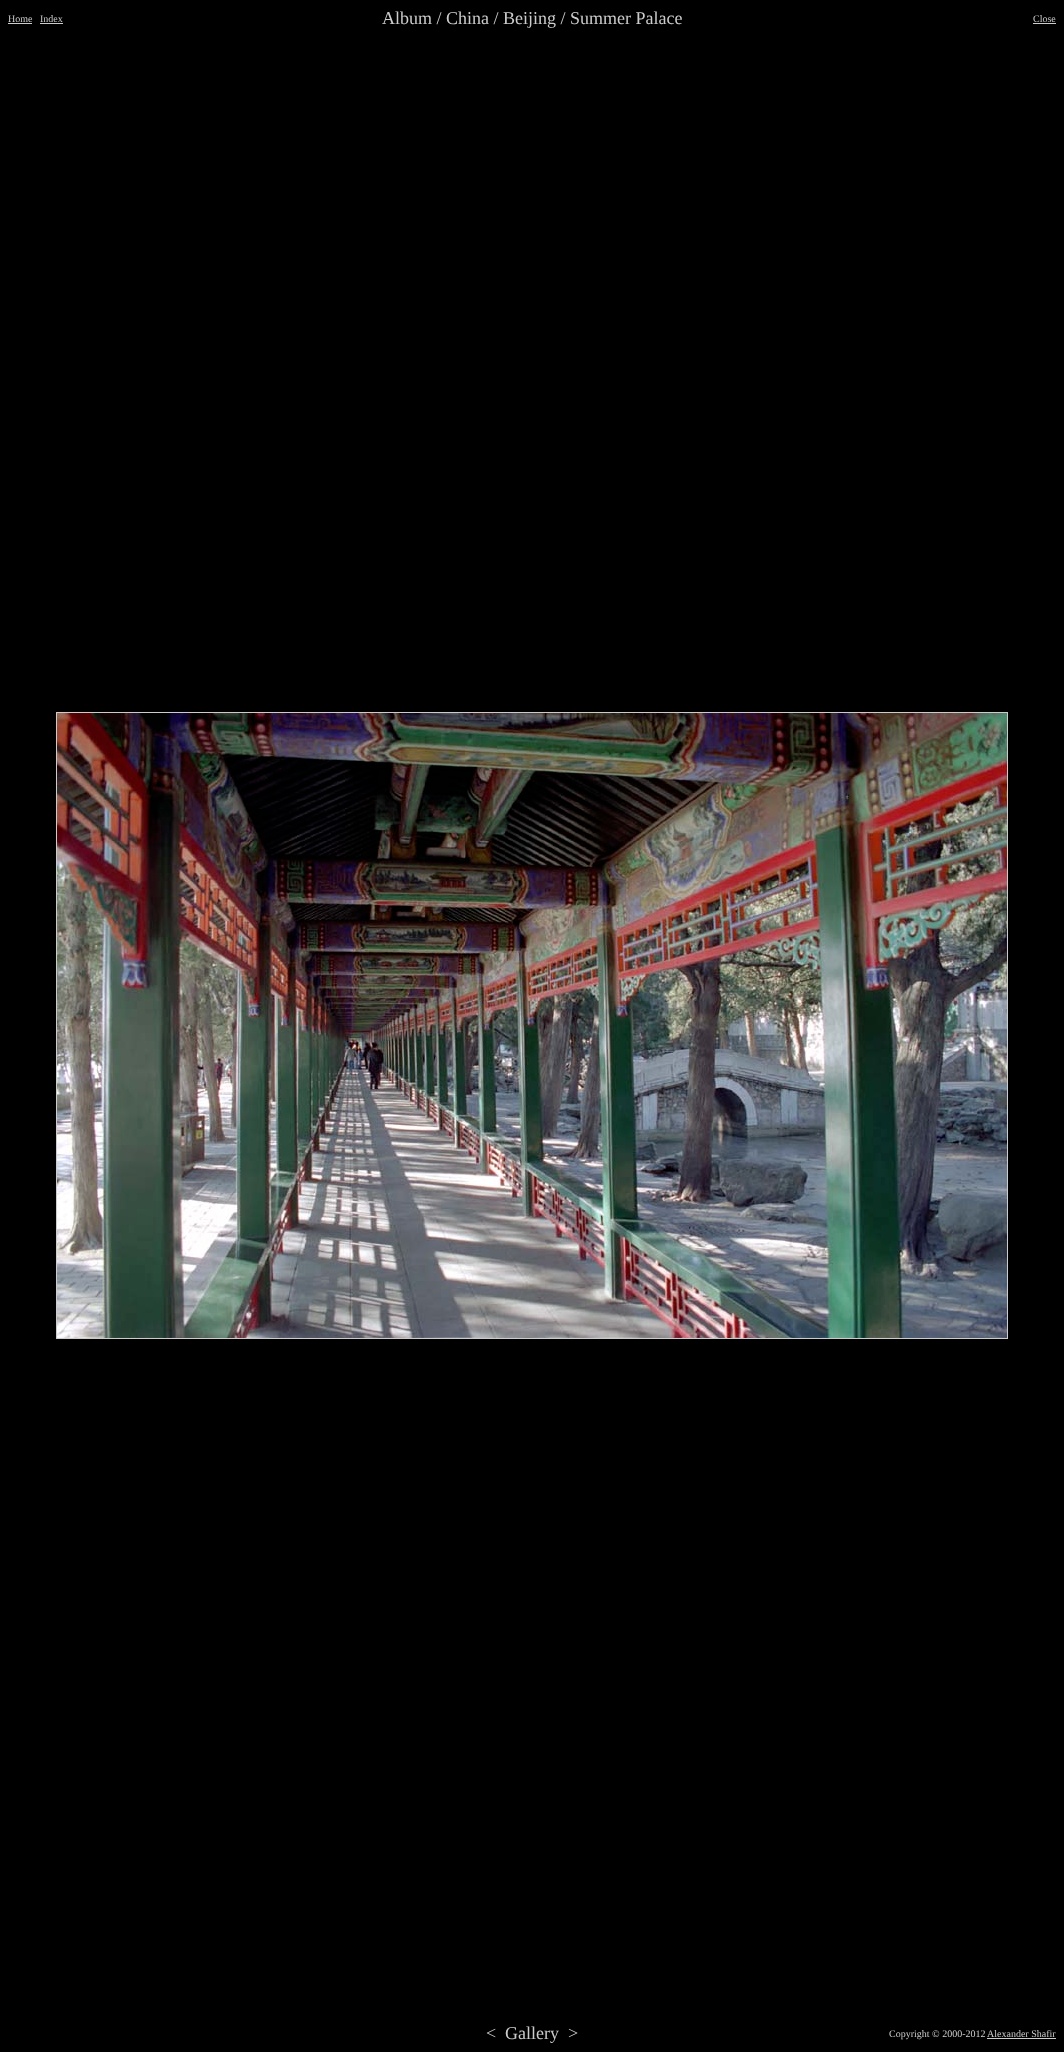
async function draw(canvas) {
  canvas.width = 1064;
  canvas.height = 2052;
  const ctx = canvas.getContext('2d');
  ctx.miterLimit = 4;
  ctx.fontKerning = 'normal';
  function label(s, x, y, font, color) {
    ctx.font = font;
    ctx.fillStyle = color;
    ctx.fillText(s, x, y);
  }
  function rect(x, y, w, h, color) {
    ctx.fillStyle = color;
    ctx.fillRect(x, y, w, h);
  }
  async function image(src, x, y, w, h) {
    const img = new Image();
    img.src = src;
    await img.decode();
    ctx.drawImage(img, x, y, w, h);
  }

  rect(0, 0, 1064, 2052, '#000');
  label('Home', 8, 22, '10px Liberation Serif', '#ccc');
  rect(8, 23, 24, 1, '#ccc');
  label('Index', 40, 22, '10px Liberation Serif', '#ccc');
  rect(40, 23, 23, 1, '#ccc');
  label('Album / China / Beijing / Summer Palace', 382, 24, '18px Liberation Serif', '#ccc');
  label('Close', 1033, 22, '10px Liberation Serif', '#ccc');
  rect(1033, 23, 23, 1, '#ccc');
  ctx.strokeStyle = '#ccc';
  ctx.strokeRect(56.5, 712.5, 951, 626);
  await image('assets/img1.png', 57, 713, 950, 625);
  label('<', 486, 2039, '18px Liberation Serif', '#ccc');
  label('Gallery', 505, 2039, '18px Liberation Serif', '#ccc');
  label('>', 568, 2039, '18px Liberation Serif', '#ccc');
  label('Copyright © 2000-2012', 889, 2037, '10px Liberation Serif', '#ccc');
  rect(987, 2038, 69, 1, '#ccc');
  label('Alexander Shafir', 987, 2037, '10px Liberation Serif', '#ccc');
}

draw(document.querySelector('canvas'));
